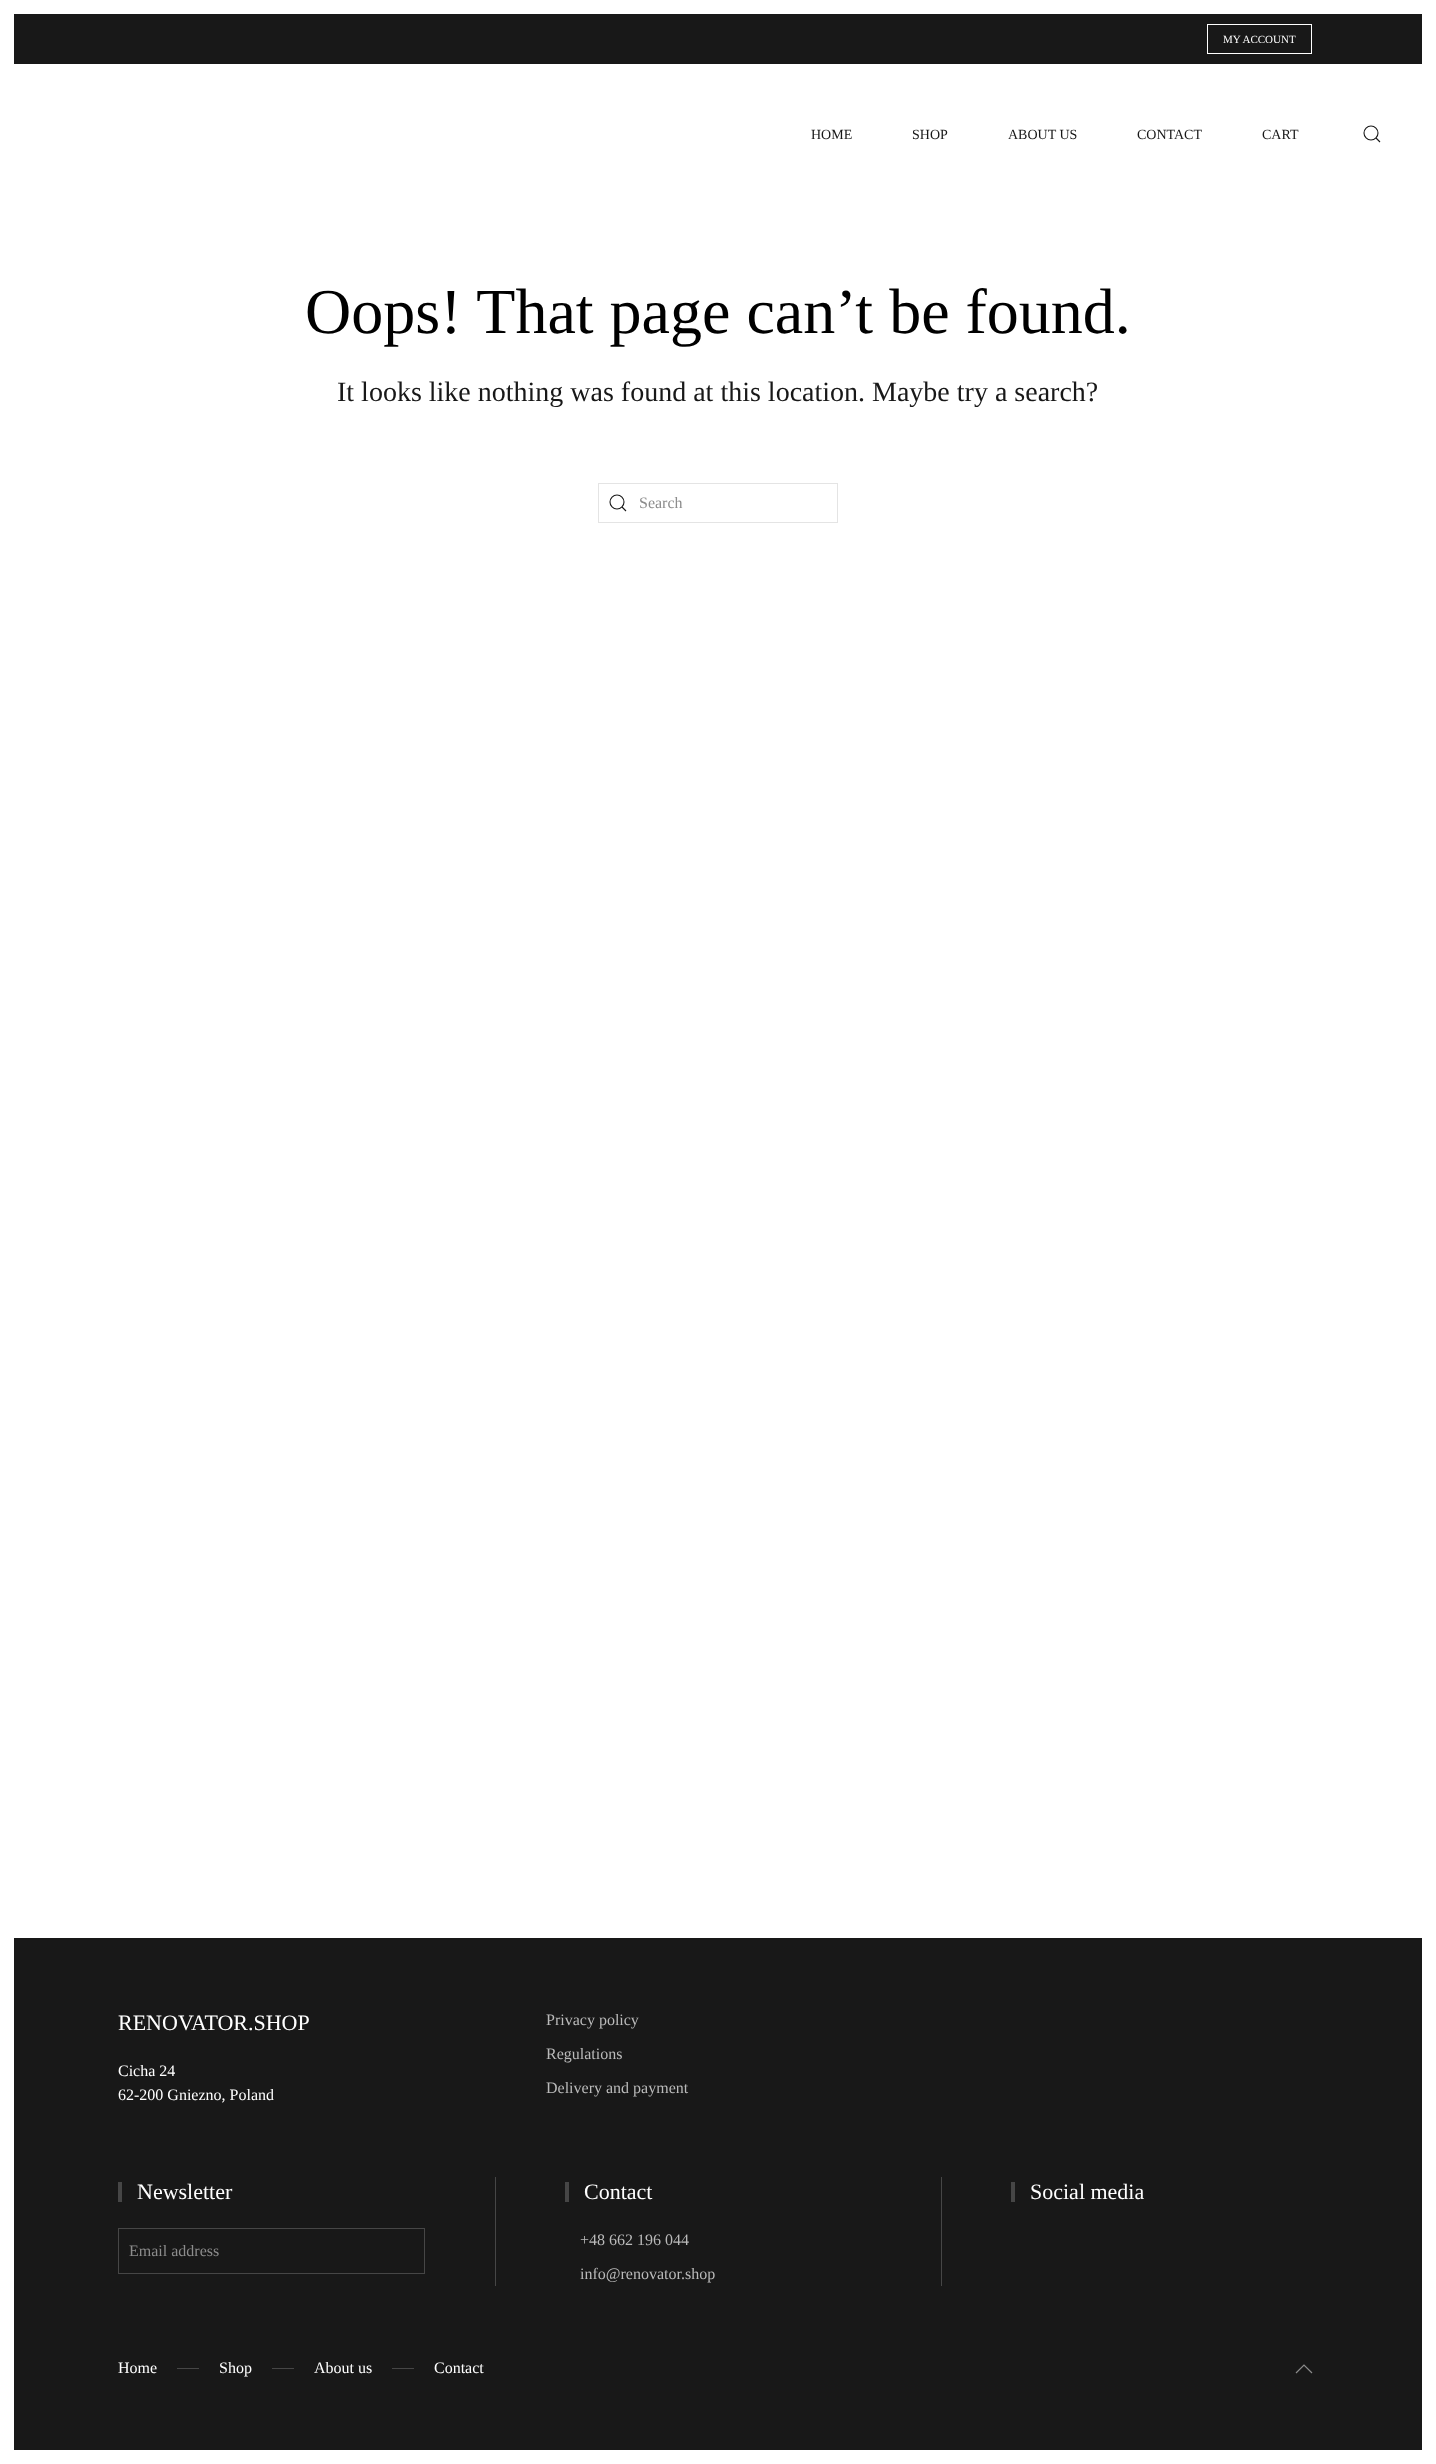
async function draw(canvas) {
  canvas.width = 1436;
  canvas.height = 2464;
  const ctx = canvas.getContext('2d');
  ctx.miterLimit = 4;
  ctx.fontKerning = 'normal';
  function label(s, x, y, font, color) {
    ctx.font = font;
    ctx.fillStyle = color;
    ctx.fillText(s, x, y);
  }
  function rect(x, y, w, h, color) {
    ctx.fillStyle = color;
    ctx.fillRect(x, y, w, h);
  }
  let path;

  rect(0, 0, 1436, 2464, '#fff');
  rect(14, 14, 1408, 50, '#181818');
  ctx.strokeStyle = '#fff';
  ctx.strokeRect(1207.5, 24.5, 104, 29);
  label('MY ACCOUNT', 1223, 43, '11px Liberation Serif', '#fff');
  label('HOME', 811, 139, '14px Liberation Serif', '#181818');
  label('SHOP', 912, 139, '14px Liberation Serif', '#181818');
  label('ABOUT US', 1008, 139, '14px Liberation Serif', '#181818');
  label('CONTACT', 1137, 139, '14px Liberation Serif', '#181818');
  label('CART', 1262, 139, '14px Liberation Serif', '#181818');
  ctx.beginPath();
  ctx.arc(1371, 133, 7, 0, 2 * Math.PI);
  ctx.strokeStyle = '#181818';
  ctx.lineWidth = 1.1;
  ctx.stroke();
  path = new Path2D('M1376 138L1380 142Z');
  ctx.stroke(path);
  label('Oops! That page can’t be found.', 305, 333, '64px Liberation Serif', '#000');
  label('It looks like nothing was found at this location. Maybe try a search?', 337, 401, '28px Liberation Serif', '#181818');
  ctx.strokeStyle = '#e4e4e4';
  ctx.lineWidth = 1;
  ctx.strokeRect(598.5, 483.5, 239, 39);
  ctx.beginPath();
  ctx.arc(617, 502, 7, 0, 2 * Math.PI);
  ctx.strokeStyle = '#181818';
  ctx.lineWidth = 1.1;
  ctx.stroke();
  path = new Path2D('M622 507L626 511Z');
  ctx.stroke(path);
  label('Search', 639, 508, '16px Liberation Serif', '#8c8c8c');
  rect(14, 1938, 1408, 512, '#181818');
  label('RENOVATOR.SHOP', 118, 2030, '22px Liberation Serif', '#fff');
  label('Cicha 24', 118, 2076, '16px Liberation Serif', '#fff');
  label('62-200 Gniezno, Poland', 118, 2100, '16px Liberation Serif', '#fff');
  label('Privacy policy', 546, 2025, '16px Liberation Serif', '#bababa');
  label('Regulations', 546, 2059, '16px Liberation Serif', '#bababa');
  label('Delivery and payment', 546, 2093, '16px Liberation Serif', '#bababa');
  rect(118, 2182, 4, 20, '#464646');
  label('Newsletter', 137, 2199, '22px Liberation Serif', '#fff');
  ctx.strokeStyle = '#464646';
  ctx.lineWidth = 1;
  ctx.strokeRect(118.5, 2228.5, 306, 45);
  label('Email address', 129, 2256, '16px Liberation Serif', '#8c8c8c');
  rect(495, 2177, 1, 109, '#464646');
  rect(565, 2182, 4, 20, '#464646');
  label('Contact', 584, 2199, '22px Liberation Serif', '#fff');
  label('+48 662 196 044', 580, 2245, '16px Liberation Serif', '#bababa');
  label('info@renovator.shop', 580, 2279, '16px Liberation Serif', '#bababa');
  rect(941, 2177, 1, 109, '#464646');
  rect(1011, 2182, 4, 20, '#464646');
  label('Social media', 1030, 2199, '22px Liberation Serif', '#fff');
  label('Home', 118, 2373, '16px Liberation Serif', '#fff');
  rect(177, 2368, 22, 1, '#464646');
  label('Shop', 219, 2373, '16px Liberation Serif', '#fff');
  rect(272, 2368, 22, 1, '#464646');
  label('About us', 314, 2373, '16px Liberation Serif', '#fff');
  rect(392, 2368, 22, 1, '#464646');
  label('Contact', 434, 2373, '16px Liberation Serif', '#fff');
  path = new Path2D('M1296 2373L1304 2365L1312 2373');
  ctx.strokeStyle = '#8c8c8c';
  ctx.lineWidth = 1.2;
  ctx.stroke(path);
}

draw(document.querySelector('canvas'));
